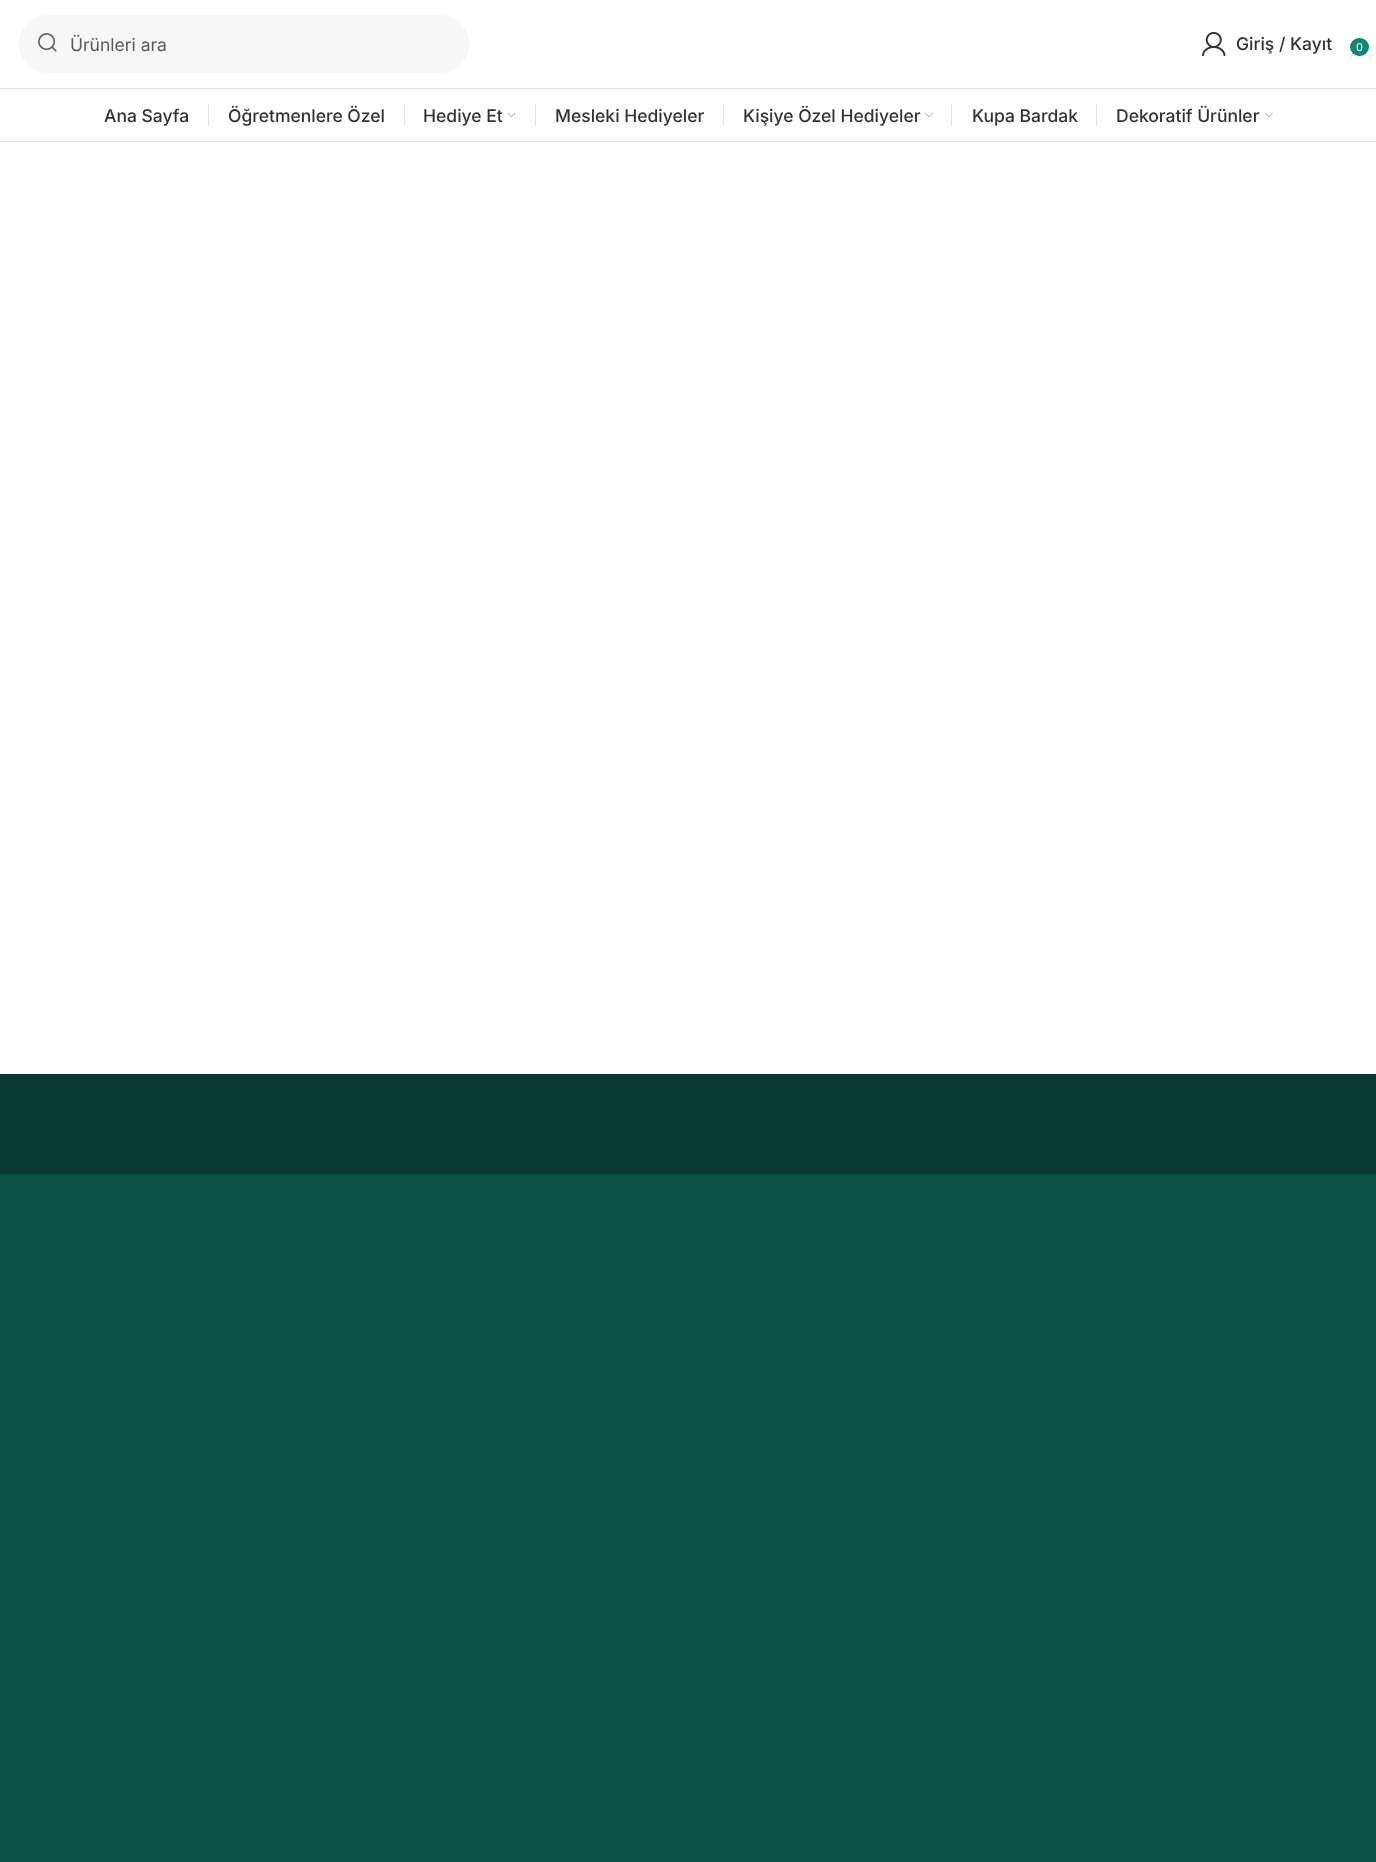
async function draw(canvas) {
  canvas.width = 1376;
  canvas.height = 1862;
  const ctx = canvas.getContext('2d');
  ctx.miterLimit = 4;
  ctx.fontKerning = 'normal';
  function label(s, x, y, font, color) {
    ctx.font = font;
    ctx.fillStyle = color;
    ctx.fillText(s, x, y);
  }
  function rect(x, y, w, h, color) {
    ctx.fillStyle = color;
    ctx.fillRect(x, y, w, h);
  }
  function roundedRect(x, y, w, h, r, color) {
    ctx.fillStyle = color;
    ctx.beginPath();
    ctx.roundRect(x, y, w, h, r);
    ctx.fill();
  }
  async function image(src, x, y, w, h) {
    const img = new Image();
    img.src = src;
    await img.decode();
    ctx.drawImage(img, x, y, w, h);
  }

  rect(0, 0, 1376, 1862, '#fff');
  rect(0, 88, 1376, 1, '#e3e3e3');
  ctx.fillStyle = '#f7f7f7';
  ctx.beginPath();
  ctx.roundRect(19.5, 15.5, 449, 57, 28.5);
  ctx.fill();
  ctx.strokeStyle = '#f5f5f5';
  ctx.stroke();
  await image('assets/img1.png', 38, 33, 19, 19);
  label('Ürünleri ara', 70, 51, '17.5px Inter', '#595959');
  await image('assets/img2.png', 1202, 32, 24, 25);
  label('Giriş / Kayıt', 1236, 50, '500 17.5px Inter', '#333');
  roundedRect(1350, 38, 19, 18, 9, '#138670');
  label('0', 1356, 51, '11px Inter', '#fff');
  rect(0, 141, 1376, 1, '#e3e3e3');
  label('Ana Sayfa', 104, 122, '500 17.5px Inter', '#333');
  rect(208, 104, 1, 22, '#e4e4e4');
  label('Öğretmenlere Özel', 228, 122, '500 17.5px Inter', '#333');
  rect(404, 104, 1, 22, '#e4e4e4');
  label('Hediye Et', 423, 122, '500 17.5px Inter', '#333');
  await image('assets/img3.png', 507, 112, 9, 5);
  rect(535, 104, 1, 22, '#e4e4e4');
  label('Mesleki Hediyeler', 555, 122, '500 17.5px Inter', '#333');
  rect(723, 104, 1, 22, '#e4e4e4');
  label('Kişiye Özel Hediyeler', 743, 122, '500 17.5px Inter', '#333');
  await image('assets/img4.png', 925, 112, 8, 5);
  rect(951, 104, 1, 22, '#e4e4e4');
  label('Kupa Bardak', 972, 122, '500 17.5px Inter', '#333');
  rect(1096, 104, 1, 22, '#e4e4e4');
  label('Dekoratif Ürünler', 1116, 122, '500 17.5px Inter', '#333');
  await image('assets/img4.png', 1265, 112, 8, 5);
  rect(0, 1174, 1376, 688, '#0b5143');
  rect(0, 1074, 1376, 100, '#08382f');
}

draw(document.querySelector('canvas'));
